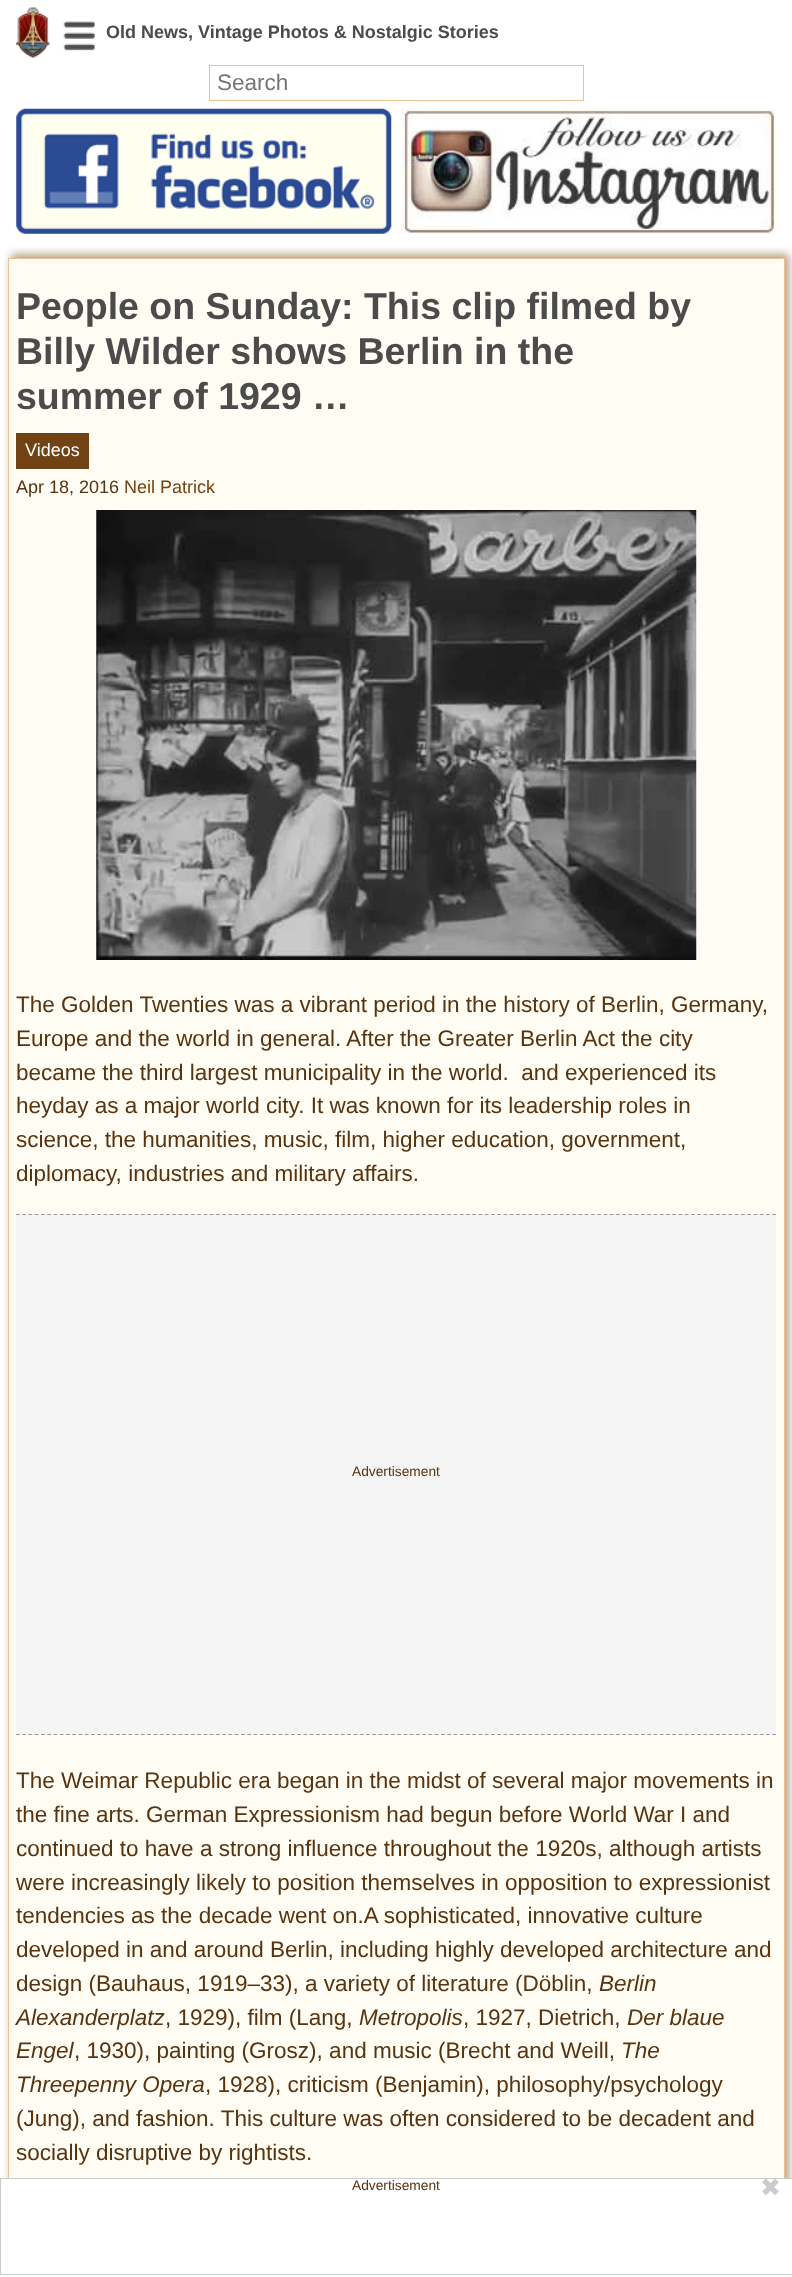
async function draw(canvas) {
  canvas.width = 792;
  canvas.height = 2277;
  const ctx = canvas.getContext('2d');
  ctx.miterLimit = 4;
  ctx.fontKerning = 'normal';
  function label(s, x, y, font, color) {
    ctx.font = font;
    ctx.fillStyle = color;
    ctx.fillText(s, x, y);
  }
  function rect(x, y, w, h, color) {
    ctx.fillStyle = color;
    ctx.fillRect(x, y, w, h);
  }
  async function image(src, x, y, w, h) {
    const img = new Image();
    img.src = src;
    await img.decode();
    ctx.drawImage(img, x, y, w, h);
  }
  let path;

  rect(0, 0, 792, 2277, '#fff');
  await image('assets/img1.png', 63, 21, 32, 30);
  await image('assets/img2.png', 16, 7, 35, 51);
  label('Old News, Vintage Photos & Nostalgic Stories', 106, 38, 'bold 18px Liberation Sans', '#4b4b4b');
  ctx.strokeStyle = '#edbf92';
  ctx.strokeRect(209.5, 65.5, 374, 35);
  label('Search', 217, 90, '22.5px Liberation Sans', '#757575');
  await image('assets/img3.png', 16, 108, 376, 126);
  await image('assets/img4.png', 401, 108, 376, 126);
  ctx.fillStyle = '#70421480';
  ctx.filter = 'blur(4px)';
  ctx.beginPath();
  ctx.rect(11, 254, 778, 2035);
  ctx.fill();
  ctx.filter = 'none';
  rect(9, 259, 775, 1919, '#fffcf3');
  ctx.strokeRect(8.5, 258.5, 776, 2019);
  label('People on Sunday: This clip filmed by', 16, 319, 'bold 37.5px Liberation Sans', '#4b4b4b');
  label('Billy Wilder shows Berlin in the', 16, 364, 'bold 37.5px Liberation Sans', '#4b4b4b');
  label('summer of 1929 …', 16, 409, 'bold 37.5px Liberation Sans', '#4b4b4b');
  rect(16, 433, 73, 36, '#704214');
  label('Videos', 25, 456, '18px Liberation Sans', '#fff');
  label('Apr 18, 2016', 16, 493, '18px Liberation Sans', '#57330f');
  label('Neil Patrick', 124, 493, '18px Liberation Sans', '#704214');
  await image('assets/img5.png', 96, 510, 601, 450);
  label('The Golden Twenties was a vibrant period in the history of Berlin, Germany,', 16, 1012, '22.5px Liberation Sans', '#57330f');
  label('Europe and the world in general. After the Greater Berlin Act the city', 16, 1046, '22.5px Liberation Sans', '#57330f');
  label('became the third largest municipality in the world.  and experienced its', 16, 1080, '22.5px Liberation Sans', '#57330f');
  label('heyday as a major world city. It was known for its leadership roles in', 16, 1113, '22.5px Liberation Sans', '#57330f');
  label('science, the humanities, music, film, higher education, government,', 16, 1147, '22.5px Liberation Sans', '#57330f');
  label('diplomacy, industries and military affairs.', 16, 1181, '22.5px Liberation Sans', '#57330f');
  rect(16, 1214, 760, 521, '#f5f5f5');
  path = new Path2D('M16 1214.5H776');
  ctx.strokeStyle = '#999';
  ctx.lineWidth = 1.2;
  ctx.setLineDash([3.75, 2.5]);
  ctx.stroke(path);
  path = new Path2D('M16 1734.5H776');
  ctx.stroke(path);
  label('Advertisement', 352, 1476, '13.75px Liberation Sans', '#57330f');
  label('The Weimar Republic era began in the midst of several major movements in', 16, 1788, '22.5px Liberation Sans', '#57330f');
  label('the fine arts. German Expressionism had begun before World War I and', 16, 1822, '22.5px Liberation Sans', '#57330f');
  label('continued to have a strong influence throughout the 1920s, although artists', 16, 1856, '22.5px Liberation Sans', '#57330f');
  label('were increasingly likely to position themselves in opposition to expressionist', 16, 1890, '22.5px Liberation Sans', '#57330f');
  label('tendencies as the decade went on.A sophisticated, innovative culture', 16, 1923, '22.5px Liberation Sans', '#57330f');
  label('developed in and around Berlin, including highly developed architecture and', 16, 1957, '22.5px Liberation Sans', '#57330f');
  label('design (Bauhaus, 1919–33), a variety of literature (Döblin,', 16, 1991, '22.5px Liberation Sans', '#57330f');
  label('Berlin', 599, 1991, 'italic 22.5px Liberation Sans', '#57330f');
  label('Alexanderplatz', 16, 2025, 'italic 22.5px Liberation Sans', '#57330f');
  label(', 1929), film (Lang,', 165, 2025, '22.5px Liberation Sans', '#57330f');
  label('Metropolis', 359, 2025, 'italic 22.5px Liberation Sans', '#57330f');
  label(', 1927, Dietrich,', 463, 2025, '22.5px Liberation Sans', '#57330f');
  label('Der blaue', 627, 2025, 'italic 22.5px Liberation Sans', '#57330f');
  label('Engel', 16, 2058, 'italic 22.5px Liberation Sans', '#57330f');
  label(', 1930), painting (Grosz), and music (Brecht and Weill,', 74, 2058, '22.5px Liberation Sans', '#57330f');
  label('The', 621, 2058, 'italic 22.5px Liberation Sans', '#57330f');
  label('Threepenny Opera', 16, 2092, 'italic 22.5px Liberation Sans', '#57330f');
  label(', 1928), criticism (Benjamin), philosophy/psychology', 205, 2092, '22.5px Liberation Sans', '#57330f');
  label('(Jung), and fashion. This culture was often considered to be decadent and', 16, 2126, '22.5px Liberation Sans', '#57330f');
  label('socially disruptive by rightists.', 16, 2160, '22.5px Liberation Sans', '#57330f');
  rect(3, 2179, 789, 98, '#fff');
  ctx.strokeStyle = '#ccc';
  ctx.lineWidth = 1;
  ctx.setLineDash([]);
  ctx.strokeRect(0.5, 2178.5, 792, 96);
  label('Advertisement', 352, 2190, '13.75px Liberation Sans', '#57330f');
  label('✖', 760, 2196, '25px DejaVu Sans', '#ccc');
}

draw(document.querySelector('canvas'));
